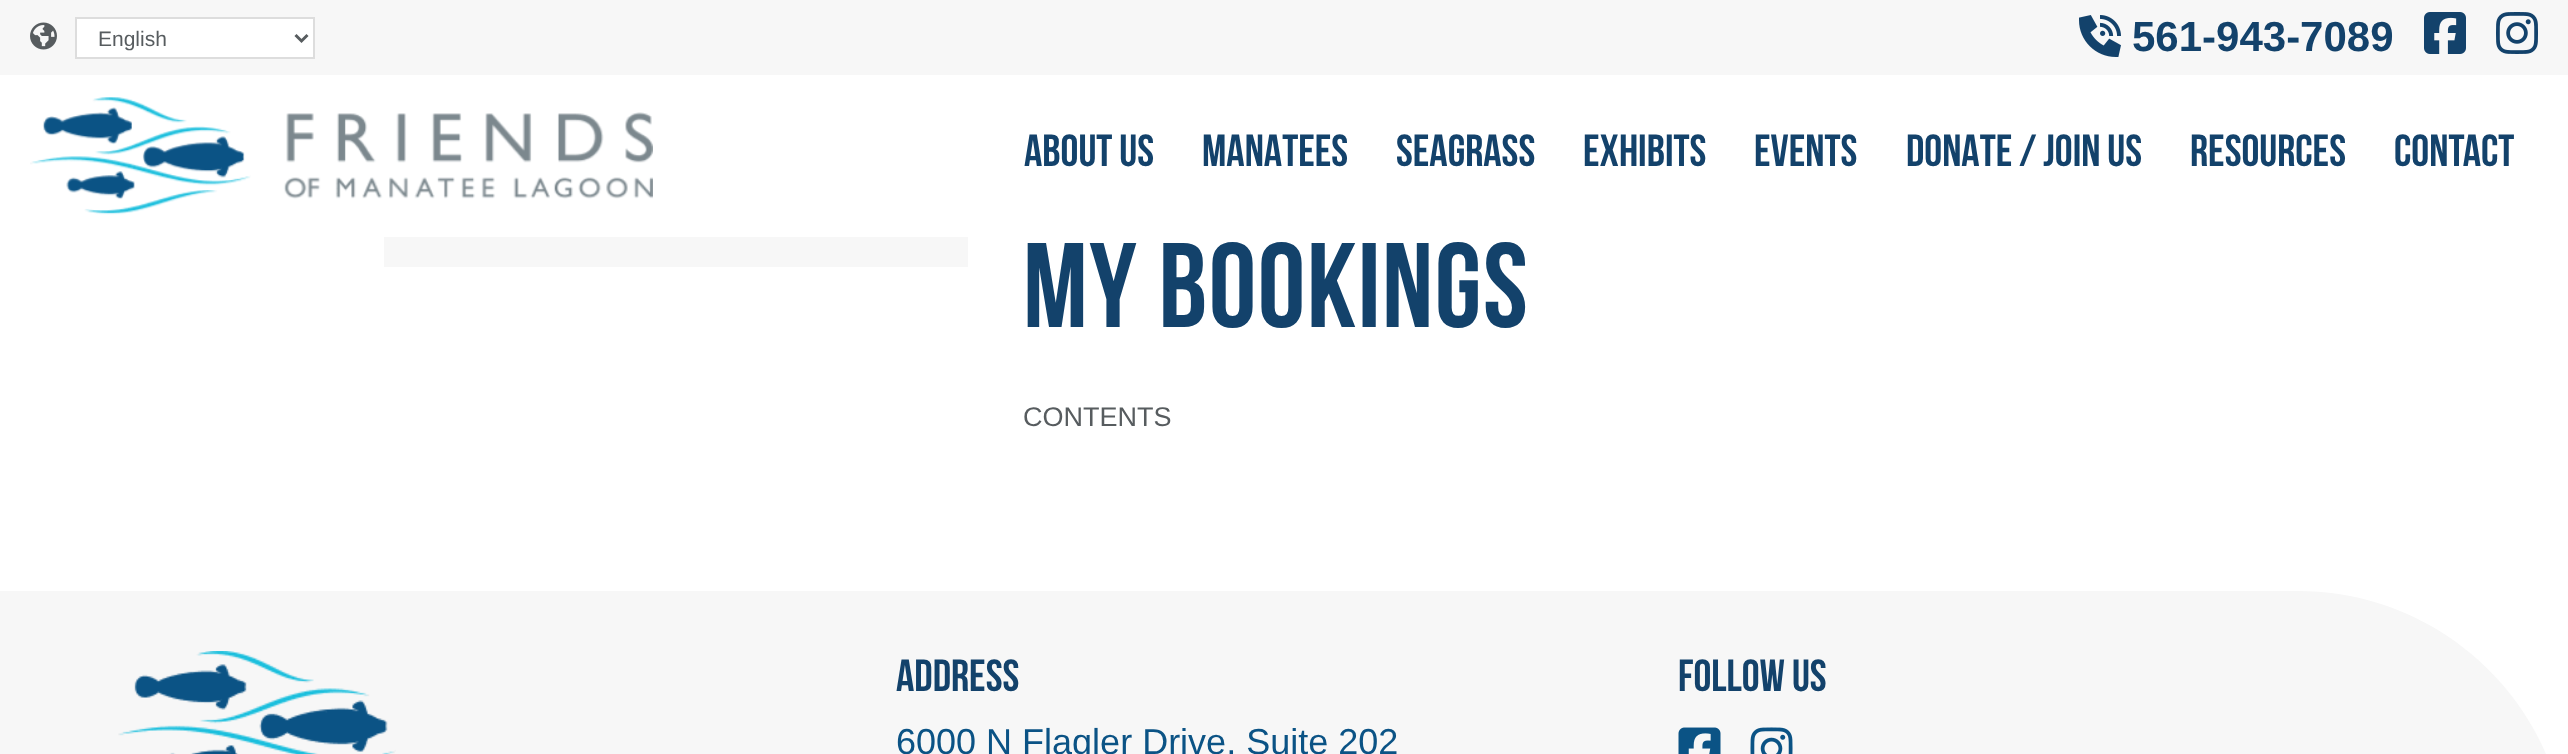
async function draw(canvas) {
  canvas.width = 2568;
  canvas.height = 754;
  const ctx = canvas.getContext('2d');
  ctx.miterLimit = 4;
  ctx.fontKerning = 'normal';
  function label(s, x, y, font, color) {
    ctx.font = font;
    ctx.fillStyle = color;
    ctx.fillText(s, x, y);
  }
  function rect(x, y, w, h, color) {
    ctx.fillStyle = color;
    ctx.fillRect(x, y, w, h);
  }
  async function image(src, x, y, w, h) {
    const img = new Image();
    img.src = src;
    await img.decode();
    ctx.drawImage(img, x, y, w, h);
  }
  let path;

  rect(0, 0, 2568, 754, '#fff');
  rect(0, 0, 2568, 75, '#f7f7f7');
  await image('assets/img1.png', 30, 22, 27, 28);
  ctx.fillStyle = '#fff';
  ctx.beginPath();
  ctx.rect(76, 18, 238, 40);
  ctx.fill();
  ctx.strokeStyle = '#ddd';
  ctx.lineWidth = 2;
  ctx.stroke();
  path = new Path2D('M295.5 35L301.5 41L307.5 35');
  ctx.strokeStyle = '#575c5f';
  ctx.lineWidth = 3;
  ctx.stroke(path);
  label('English', 98, 46, '21px Liberation Sans', '#575c5f');
  await image('assets/img2.png', 2079, 15, 42, 42);
  label('561-943-7089', 2132, 51, 'bold 42px Liberation Sans', '#13426b');
  await image('assets/img3.png', 2424, 12, 42, 42);
  await image('assets/img4.png', 2496, 12, 42, 42);
  await image('assets/img5.png', 30, 97, 623, 118);
  label('ABOUT US', 1024, 166, 'bold 45px Bebas Neue', '#13426b');
  label('MANATEES', 1202, 166, 'bold 45px Bebas Neue', '#13426b');
  label('SEAGRASS', 1396, 166, 'bold 45px Bebas Neue', '#13426b');
  label('EXHIBITS', 1583, 166, 'bold 45px Bebas Neue', '#13426b');
  label('EVENTS', 1754, 166, 'bold 45px Bebas Neue', '#13426b');
  label('DONATE / JOIN US', 1906, 166, 'bold 45px Bebas Neue', '#13426b');
  label('RESOURCES', 2190, 166, 'bold 45px Bebas Neue', '#13426b');
  label('CONTACT', 2394, 166, 'bold 45px Bebas Neue', '#13426b');
  rect(384, 237, 584, 30, '#f7f7f7');
  ctx.letterSpacing = '1.5px';
  label('My Bookings', 1023, 327, 'bold 120px Bebas Neue', '#13426b');
  ctx.letterSpacing = '0px';
  label('CONTENTS', 1023, 426, '27px Liberation Sans', '#575c5f');
  ctx.fillStyle = '#f7f7f7';
  path = new Path2D('M0 591H2298C2447 591 2568 712 2568 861V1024H0Z');
  ctx.fill(path);
  await image('assets/img6.png', 118, 651, 278, 103);
  label('Address', 896, 691, 'bold 45px Bebas Neue', '#13426b');
  label('6000 N Flagler Drive, Suite 202', 896, 754, '36px Liberation Sans', '#0b5385');
  label('Follow Us', 1678, 691, 'bold 45px Bebas Neue', '#13426b');
  await image('assets/img7.png', 1678, 727, 43, 27);
  await image('assets/img8.png', 1750, 727, 43, 27);
}

draw(document.querySelector('canvas'));
